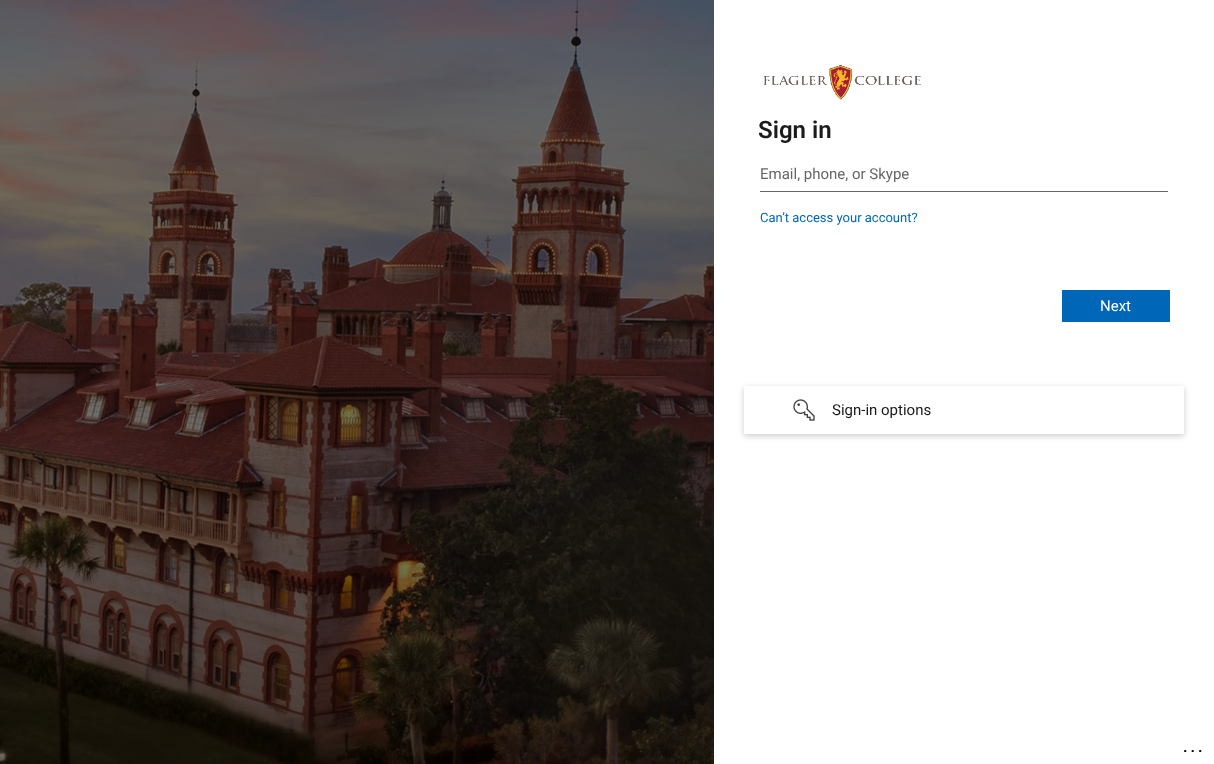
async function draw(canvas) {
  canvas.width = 1214;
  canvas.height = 764;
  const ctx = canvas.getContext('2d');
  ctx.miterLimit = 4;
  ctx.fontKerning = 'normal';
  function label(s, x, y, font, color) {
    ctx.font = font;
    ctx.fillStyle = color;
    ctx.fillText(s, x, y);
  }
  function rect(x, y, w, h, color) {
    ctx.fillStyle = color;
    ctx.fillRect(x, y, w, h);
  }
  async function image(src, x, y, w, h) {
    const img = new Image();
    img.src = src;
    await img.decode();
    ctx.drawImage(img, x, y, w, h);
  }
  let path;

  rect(0, 0, 1214, 764, '#fff');
  await image('assets/img1.png', 0, 0, 714, 764);
  await image('assets/img2.png', 764, 65, 157, 35);
  label('Sign in', 758, 138, '600 24px Roboto', '#1b1b1b');
  rect(760, 191, 408, 1, '#666');
  label('Email, phone, or Skype', 760, 179, '15px Roboto', '#666');
  label('Can’t access your account?', 760, 222, '13px Roboto', '#0067b8');
  rect(1062, 290, 108, 32, '#0067b8');
  label('Next', 1100, 311, '15px Roboto', '#fff');
  ctx.save();
  path = new Path2D('M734 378H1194V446H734ZM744 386H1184V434H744Z');
  ctx.clip(path, 'evenodd');
  ctx.fillStyle = '#00000033';
  ctx.filter = 'blur(3px)';
  ctx.beginPath();
  ctx.rect(744, 388, 440, 48);
  ctx.fill();
  ctx.filter = 'none';
  ctx.restore();
  await image('assets/img3.png', 793, 399, 22, 22);
  label('Sign-in options', 832, 415, '15px Roboto', '#1b1b1b');
  ctx.letterSpacing = '3px';
  label('...', 1183, 752, '600 16px Roboto', '#000');
}

draw(document.querySelector('canvas'));
